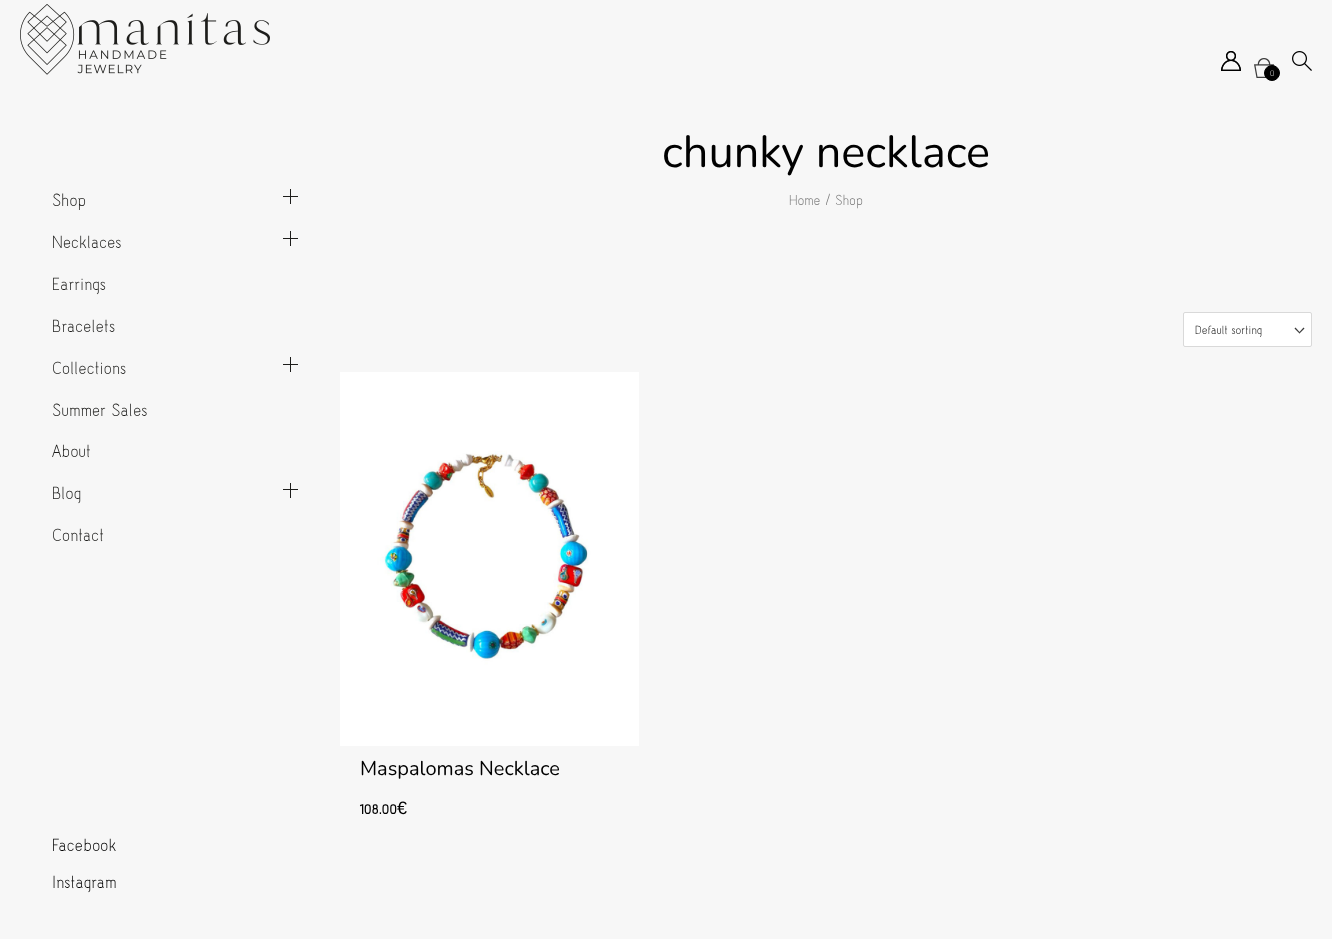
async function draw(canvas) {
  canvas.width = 1332;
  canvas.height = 939;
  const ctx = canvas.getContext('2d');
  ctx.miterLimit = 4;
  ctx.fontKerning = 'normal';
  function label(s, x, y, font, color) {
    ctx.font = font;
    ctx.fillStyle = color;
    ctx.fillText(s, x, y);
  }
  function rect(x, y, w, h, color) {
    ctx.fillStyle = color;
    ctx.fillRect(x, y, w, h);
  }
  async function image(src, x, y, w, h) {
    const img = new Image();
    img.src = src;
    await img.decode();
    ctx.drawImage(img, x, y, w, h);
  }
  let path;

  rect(0, 0, 1332, 939, '#f7f7f7');
  await image('assets/img1.png', 20, 4, 250, 71);
  await image('assets/img2.png', 1221, 51, 20, 20);
  await image('assets/img3.png', 1292, 51, 20, 20);
  await image('assets/img4.png', 1254, 58, 20, 20);
  ctx.fillStyle = '#000';
  ctx.beginPath();
  ctx.arc(1272, 73, 7.5, 0, 2 * Math.PI);
  ctx.fill();
  ctx.strokeStyle = '#000';
  ctx.stroke();
  label('0', 1270, 76, '10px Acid', '#fff');
  label('Shop', 52, 206, '22px Acid', '#1d1d1b');
  rect(283, 196, 15, 1, '#1d1d1b');
  rect(290, 189, 1, 15, '#1d1d1b');
  label('Necklaces', 52, 248, '22px Acid', '#1d1d1b');
  rect(283, 238, 15, 1, '#1d1d1b');
  rect(290, 231, 1, 15, '#1d1d1b');
  label('Earrings', 52, 290, '22px Acid', '#1d1d1b');
  label('Bracelets', 52, 332, '22px Acid', '#1d1d1b');
  label('Collections', 52, 374, '22px Acid', '#1d1d1b');
  rect(283, 364, 15, 1, '#1d1d1b');
  rect(290, 357, 1, 15, '#1d1d1b');
  label('Summer Sales', 52, 416, '22px Acid', '#1d1d1b');
  label('About', 52, 457, '22px Acid', '#1d1d1b');
  label('Blog', 52, 499, '22px Acid', '#1d1d1b');
  rect(283, 489, 15, 1, '#1d1d1b');
  rect(290, 483, 1, 15, '#1d1d1b');
  label('Contact', 52, 541, '22px Acid', '#1d1d1b');
  label('Facebook', 52, 851, '22px Acid', '#000');
  label('Instagram', 52, 888, '22px Acid', '#000');
  label('chunky necklace', 662, 167, '45px Nunito', '#000');
  label('Home', 789, 205, '18px Acid', '#767676');
  label('/', 825, 205, '20px Acid', '#767676');
  label('Shop', 835, 205, '18px Acid', '#767676');
  ctx.fillStyle = '#fff';
  ctx.beginPath();
  ctx.roundRect(1183.5, 312.5, 128, 34, 1.5);
  ctx.fill();
  ctx.strokeStyle = '#d9d9d9';
  ctx.stroke();
  label('Default sorting', 1195, 334, '15px Acid', '#000');
  ctx.fillStyle = '#3c3c3c';
  path = new Path2D('M1303.5 327.5L1304.5 328.5L1299.5 333.5L1299 332.5Z');
  ctx.fill(path);
  path = new Path2D('M1295.5 327.5L1300 332.5L1299.5 333.5L1294.5 328.5Z');
  ctx.fill(path);
  await image('assets/img5.png', 340, 372, 299, 374);
  label('Maspalomas Necklace', 360, 775, '20px Nunito', '#000');
  label('108.00', 360, 814, 'bold 18px Acid', '#000');
  label('€', 397, 814, '18px Liberation Sans', '#000');
}

draw(document.querySelector('canvas'));
